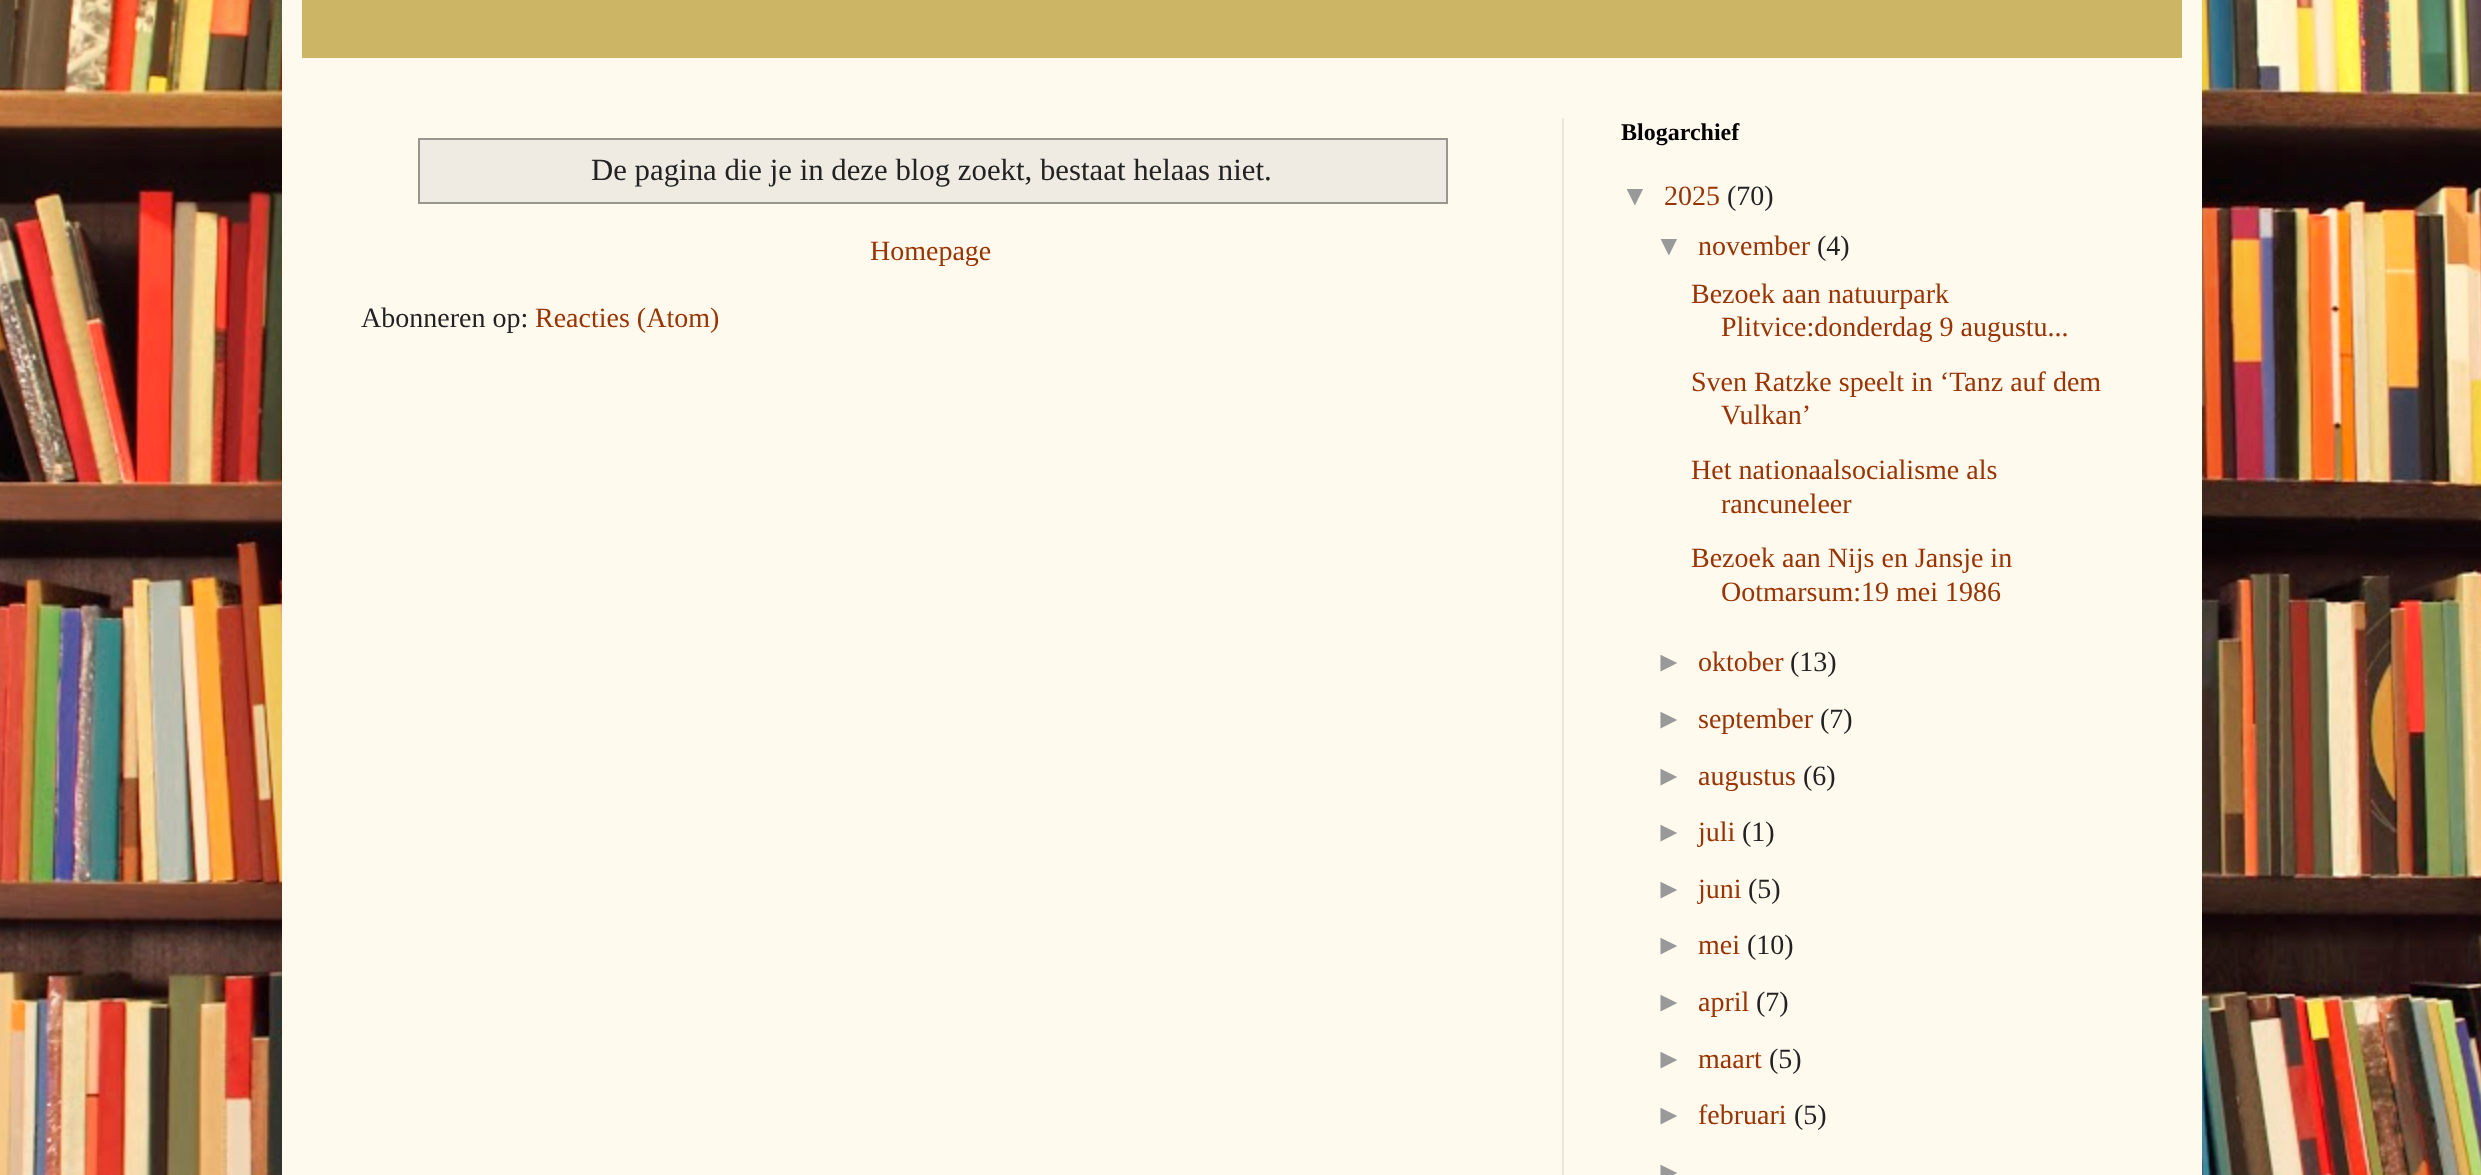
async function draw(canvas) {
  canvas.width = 2481;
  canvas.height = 1175;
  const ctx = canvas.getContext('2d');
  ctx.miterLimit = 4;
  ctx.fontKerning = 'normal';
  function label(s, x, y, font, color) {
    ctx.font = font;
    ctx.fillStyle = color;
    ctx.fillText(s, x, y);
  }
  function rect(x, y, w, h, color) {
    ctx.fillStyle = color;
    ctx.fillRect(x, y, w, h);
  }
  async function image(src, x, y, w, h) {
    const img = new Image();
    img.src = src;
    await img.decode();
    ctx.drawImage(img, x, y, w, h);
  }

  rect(0, 0, 2481, 1175, '#fff');
  await image('assets/img1.png', 0, 0, 2481, 1175);
  ctx.fillStyle = '#00000026';
  ctx.filter = 'blur(40px)';
  ctx.beginPath();
  ctx.rect(282, -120, 1920, 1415);
  ctx.fill();
  ctx.filter = 'none';
  rect(282, 0, 1920, 1175, '#fff9ee');
  rect(302, 0, 1880, 58, '#ccb666');
  rect(1562, 118, 2, 1057, '#eee5dd');
  ctx.strokeStyle = '#99958f';
  ctx.lineWidth = 2;
  ctx.strokeRect(419, 139, 1028, 64);
  rect(420, 140, 1026, 62, '#efebe3');
  label('De pagina die je in deze blog zoekt, bestaat helaas niet.', 591, 180, '30.8px Liberation Serif', '#222');
  label('Homepage', 870, 260, '28px Liberation Serif', '#930');
  label('Abonneren op:', 361, 327, '28px Liberation Serif', '#222');
  label('Reacties (Atom)', 535, 327, '28px Liberation Serif', '#930');
  label('Blogarchief', 1621, 140, 'bold 24px Liberation Serif', '#000');
  label('▼', 1621, 205, '28px Liberation Sans', '#999');
  label('2025', 1664, 205, '28px Liberation Serif', '#930');
  label('(70)', 1727, 205, '28px Liberation Serif', '#222');
  label('▼', 1655, 255, '28px Liberation Sans', '#999');
  label('november', 1698, 255, '28px Liberation Serif', '#930');
  label('(4)', 1817, 255, '28px Liberation Serif', '#222');
  label('Bezoek aan natuurpark', 1691, 303, '28px Liberation Serif', '#930');
  label('Plitvice:donderdag 9 augustu...', 1721, 336, '28px Liberation Serif', '#930');
  label('Sven Ratzke speelt in ‘Tanz auf dem', 1691, 391, '28px Liberation Serif', '#930');
  label('Vulkan’', 1721, 424, '28px Liberation Serif', '#930');
  label('Het nationaalsocialisme als', 1691, 479, '28px Liberation Serif', '#930');
  label('rancuneleer', 1721, 513, '28px Liberation Serif', '#930');
  label('Bezoek aan Nijs en Jansje in', 1691, 567, '28px Liberation Serif', '#930');
  label('Ootmarsum:19 mei 1986', 1721, 601, '28px Liberation Serif', '#930');
  label('►', 1655, 671, '28px Liberation Sans', '#999');
  label('oktober', 1698, 671, '28px Liberation Serif', '#930');
  label('(13)', 1790, 671, '28px Liberation Serif', '#222');
  label('►', 1655, 728, '28px Liberation Sans', '#999');
  label('september', 1698, 728, '28px Liberation Serif', '#930');
  label('(7)', 1820, 728, '28px Liberation Serif', '#222');
  label('►', 1655, 785, '28px Liberation Sans', '#999');
  label('augustus', 1698, 785, '28px Liberation Serif', '#930');
  label('(6)', 1803, 785, '28px Liberation Serif', '#222');
  label('►', 1655, 841, '28px Liberation Sans', '#999');
  label('juli', 1698, 841, '28px Liberation Serif', '#930');
  label('(1)', 1742, 841, '28px Liberation Serif', '#222');
  label('►', 1655, 898, '28px Liberation Sans', '#999');
  label('juni', 1698, 898, '28px Liberation Serif', '#930');
  label('(5)', 1748, 898, '28px Liberation Serif', '#222');
  label('►', 1655, 954, '28px Liberation Sans', '#999');
  label('mei', 1698, 954, '28px Liberation Serif', '#930');
  label('(10)', 1747, 954, '28px Liberation Serif', '#222');
  label('►', 1655, 1011, '28px Liberation Sans', '#999');
  label('april', 1698, 1011, '28px Liberation Serif', '#930');
  label('(7)', 1756, 1011, '28px Liberation Serif', '#222');
  label('►', 1655, 1068, '28px Liberation Sans', '#999');
  label('maart', 1698, 1068, '28px Liberation Serif', '#930');
  label('(5)', 1769, 1068, '28px Liberation Serif', '#222');
  label('►', 1655, 1124, '28px Liberation Sans', '#999');
  label('februari', 1698, 1124, '28px Liberation Serif', '#930');
  label('(5)', 1794, 1124, '28px Liberation Serif', '#222');
  label('►', 1655, 1181, '28px Liberation Sans', '#999');
}

draw(document.querySelector('canvas'));
